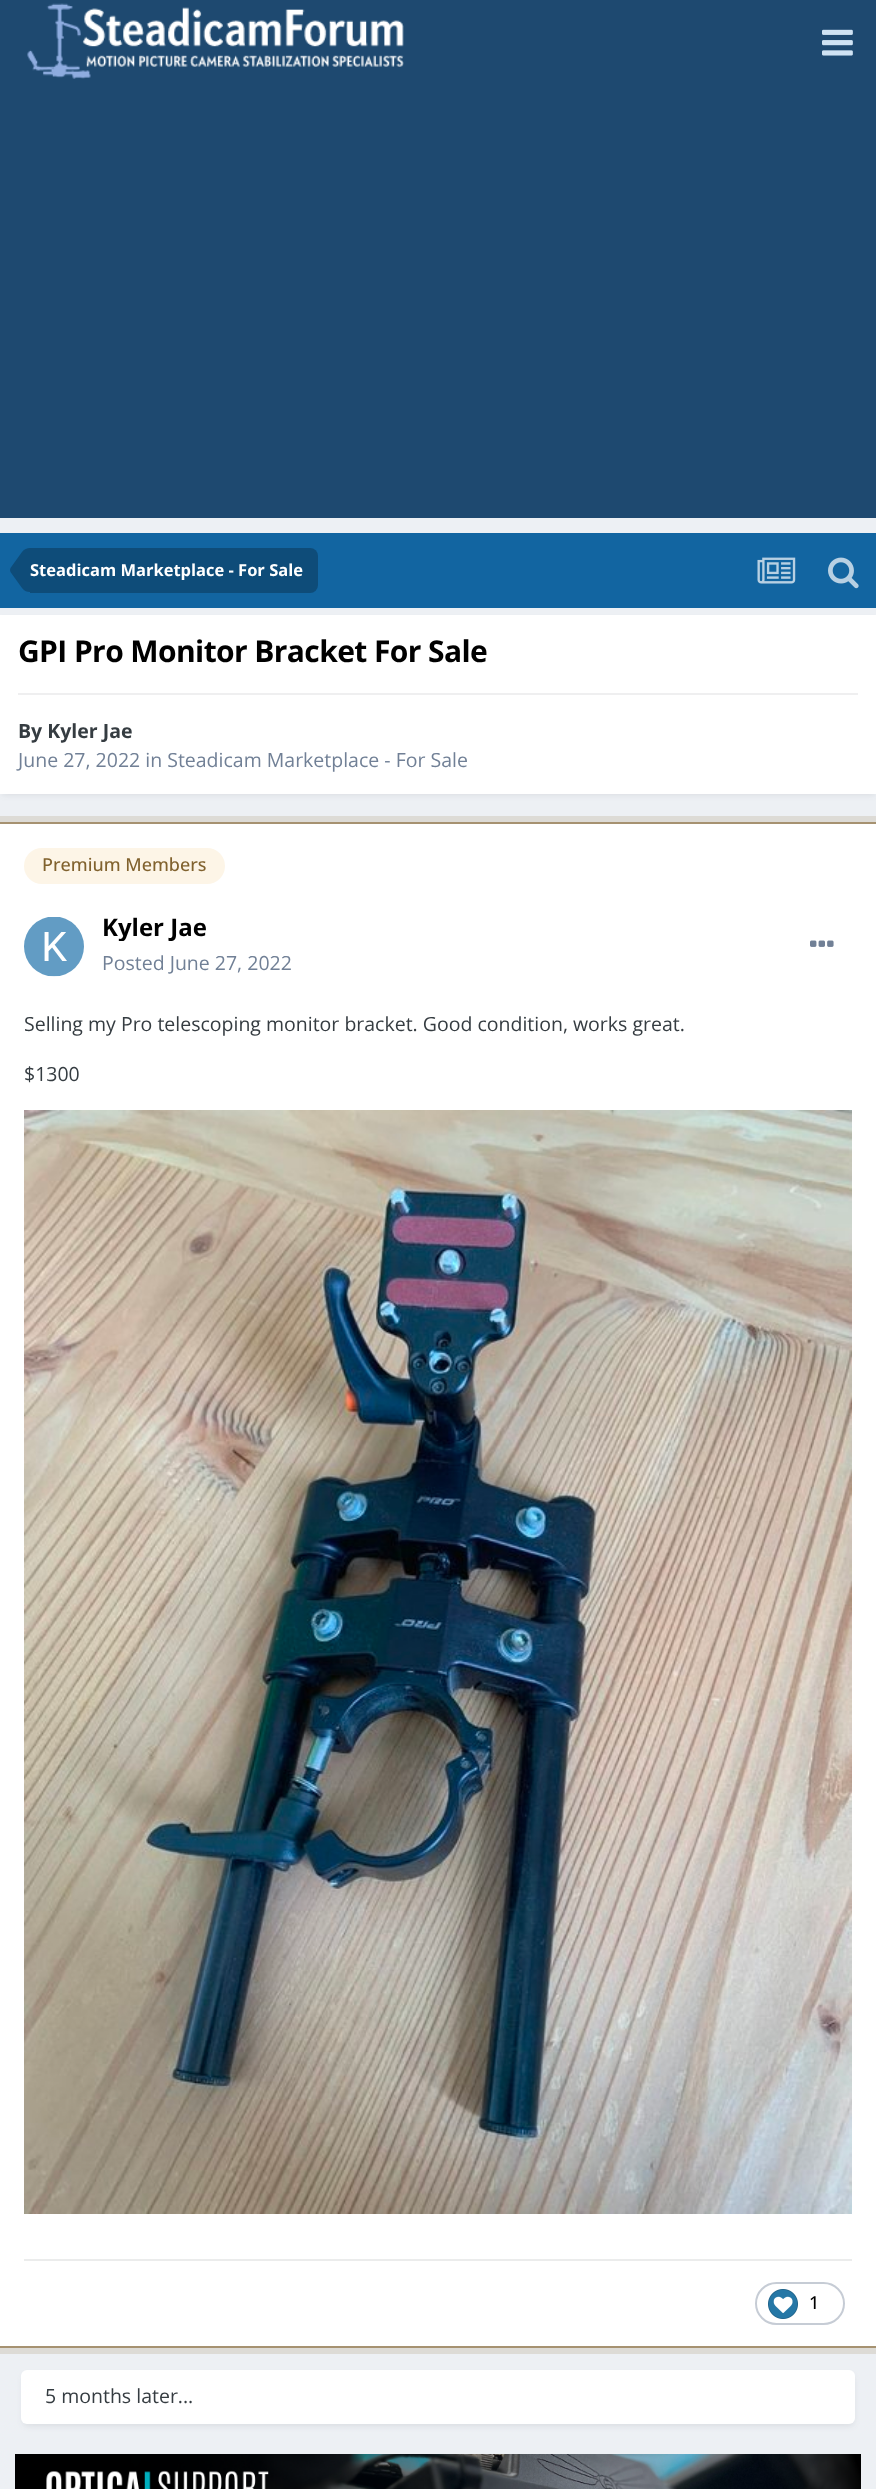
async function draw(canvas) {
  canvas.width = 876;
  canvas.height = 2489;
  const ctx = canvas.getContext('2d');
  ctx.miterLimit = 4;
  ctx.fontKerning = 'normal';
  function label(s, x, y, font, color) {
    ctx.font = font;
    ctx.fillStyle = color;
    ctx.fillText(s, x, y);
  }
  function rect(x, y, w, h, color) {
    ctx.fillStyle = color;
    ctx.fillRect(x, y, w, h);
  }
  function roundedRect(x, y, w, h, r, color) {
    ctx.fillStyle = color;
    ctx.beginPath();
    ctx.roundRect(x, y, w, h, r);
    ctx.fill();
  }
  async function image(src, x, y, w, h) {
    const img = new Image();
    img.src = src;
    await img.decode();
    ctx.drawImage(img, x, y, w, h);
  }
  let path;

  rect(0, 0, 876, 2489, '#edf0f4');
  rect(0, 0, 876, 518, '#1e4970');
  await image('assets/img1.png', 27, 3, 377, 76);
  await image('assets/img2.png', 822, 29, 31, 27);
  rect(0, 533, 876, 75, '#1265a1');
  ctx.fillStyle = '#0e4c79';
  ctx.beginPath();
  ctx.roundRect(30, 548, 288, 45, [0, 8, 8, 0]);
  ctx.fill();
  path = new Path2D('M30 570V592C27 592 24.5 591 22 588L10.5 572L10 570ZM30 570H10L10.5 568L22 552C24.5 549 27 548 30 548Z');
  ctx.fill(path);
  label('Steadicam Marketplace - For Sale', 30, 576, 'bold 16.5px Open Sans', '#fff');
  await image('assets/img3.png', 757, 557, 39, 27);
  await image('assets/img4.png', 828, 557, 31, 32);
  ctx.fillStyle = '#2d37481a';
  ctx.filter = 'blur(3px)';
  ctx.beginPath();
  ctx.rect(2, 620, 873, 175);
  ctx.fill();
  ctx.filter = 'none';
  rect(0, 615, 876, 179, '#fff');
  ctx.letterSpacing = '-0.6px';
  label('GPI Pro Monitor Bracket For Sale', 18, 662, 'bold 30px Open Sans', '#000');
  rect(18, 693, 840, 2, '#efeff0');
  ctx.letterSpacing = '0px';
  label('By Kyler Jae', 18, 738, 'bold 19.5px Open Sans', '#353c41');
  label('June 27, 2022 in Steadicam Marketplace - For Sale', 18, 767, '19.5px Open Sans', '#718096');
  ctx.strokeStyle = '#dddbd6';
  ctx.lineWidth = 8;
  ctx.strokeRect(-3, 820, 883, 1530);
  ctx.strokeStyle = '#a69271';
  ctx.lineWidth = 2;
  ctx.strokeRect(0, 823, 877, 1524);
  rect(0, 824, 876, 1522, '#fff');
  roundedRect(24, 848, 201, 36, 18, '#fdf5e7');
  label('Premium Members', 42, 871, '500 18px Open Sans', '#81622e');
  await image('assets/img5.png', 24, 917, 60, 60);
  ctx.save();
  ctx.beginPath();
  ctx.rect(102, 914, 105, 27);
  ctx.clip();
  label('Kyler Jae', 102, 936, 'bold 24px Open Sans', '#000');
  ctx.restore();
  label('Posted June 27, 2022', 102, 970, '19.5px Open Sans', '#718096');
  await image('assets/img6.png', 810, 940, 24, 7);
  label('Selling my Pro telescoping monitor bracket. Good condition, works great.', 24, 1031, '19.5px Open Sans', '#353c41');
  label('$1300', 24, 1081, '19.5px Open Sans', '#353c41');
  await image('assets/img7.png', 24, 1110, 828, 1104);
  rect(24, 2259, 828, 2, '#ebecec');
  ctx.beginPath();
  ctx.roundRect(756, 2283, 88, 41, 20.5);
  ctx.strokeStyle = '#c6ccd5';
  ctx.stroke();
  await image('assets/img8.png', 768, 2289, 30, 30);
  label('1', 809, 2309, '500 18px Open Sans', '#000');
  ctx.fillStyle = '#2d37481a';
  ctx.filter = 'blur(3px)';
  ctx.beginPath();
  ctx.roundRect(23, 2375, 831, 51, 5);
  ctx.fill();
  ctx.filter = 'none';
  roundedRect(21, 2370, 834, 54, 6, '#fff');
  label('5 months later...', 45, 2403, '19.5px Open Sans', '#353c41');
  await image('assets/img9.png', 15, 2454, 846, 35);
}

draw(document.querySelector('canvas'));
